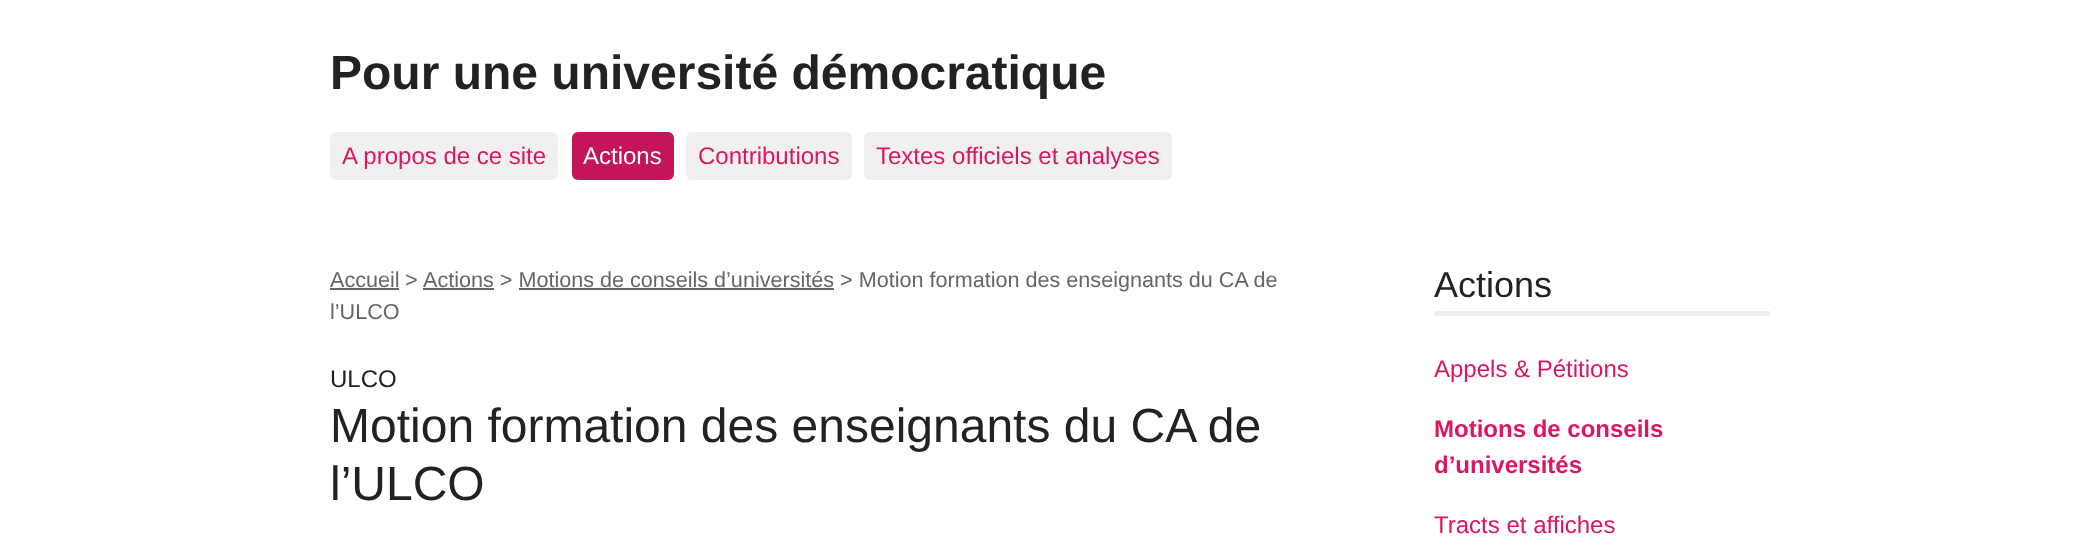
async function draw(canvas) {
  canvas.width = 2099;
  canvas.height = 556;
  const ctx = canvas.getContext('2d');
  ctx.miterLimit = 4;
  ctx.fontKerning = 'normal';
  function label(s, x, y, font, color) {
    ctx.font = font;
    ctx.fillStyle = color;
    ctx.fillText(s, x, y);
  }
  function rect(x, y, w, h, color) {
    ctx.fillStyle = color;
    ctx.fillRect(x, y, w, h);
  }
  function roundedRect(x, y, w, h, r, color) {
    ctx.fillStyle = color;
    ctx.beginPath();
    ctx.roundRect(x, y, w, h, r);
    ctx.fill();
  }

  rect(0, 0, 2099, 556, '#fff');
  label('Pour une université démocratique', 330, 89, 'bold 48px Liberation Sans', '#222');
  roundedRect(330, 132, 228, 48, 6, '#f0f0f0');
  label('A propos de ce site', 342, 164, '24px Liberation Sans', '#db1762');
  roundedRect(572, 132, 102, 48, 6, '#c41558');
  label('Actions', 583, 164, '24px Liberation Sans', '#fff');
  roundedRect(686, 132, 166, 48, 6, '#f0f0f0');
  label('Contributions', 698, 164, '24px Liberation Sans', '#db1762');
  roundedRect(864, 132, 308, 48, 6, '#f0f0f0');
  label('Textes officiels et analyses', 876, 164, '24px Liberation Sans', '#db1762');
  label('Accueil', 330, 287, '21.6px Liberation Sans', '#666');
  rect(330, 288, 69, 2, '#666');
  label('>', 405, 287, '21.6px Liberation Sans', '#666');
  rect(423, 288, 71, 2, '#666');
  label('Actions > Motions de conseils d’universités > Motion formation des enseignants du CA de', 423, 287, '21.6px Liberation Sans', '#666');
  rect(519, 288, 315, 2, '#666');
  label('l’ULCO', 330, 319, '21.6px Liberation Sans', '#666');
  label('ULCO', 330, 387, '24px Liberation Sans', '#222');
  label('Motion formation des enseignants du CA de', 330, 442, '48px Liberation Sans', '#222');
  label('l’ULCO', 330, 500, '48px Liberation Sans', '#222');
  rect(1434, 311, 336, 5, '#eee');
  label('Actions', 1434, 297, '36px Liberation Sans', '#222');
  label('Appels & Pétitions', 1434, 377, '24px Liberation Sans', '#db1762');
  label('Motions de conseils', 1434, 437, 'bold 24px Liberation Sans', '#db1762');
  label('d’universités', 1434, 473, 'bold 24px Liberation Sans', '#db1762');
  label('Tracts et affiches', 1434, 533, '24px Liberation Sans', '#db1762');
}

draw(document.querySelector('canvas'));
